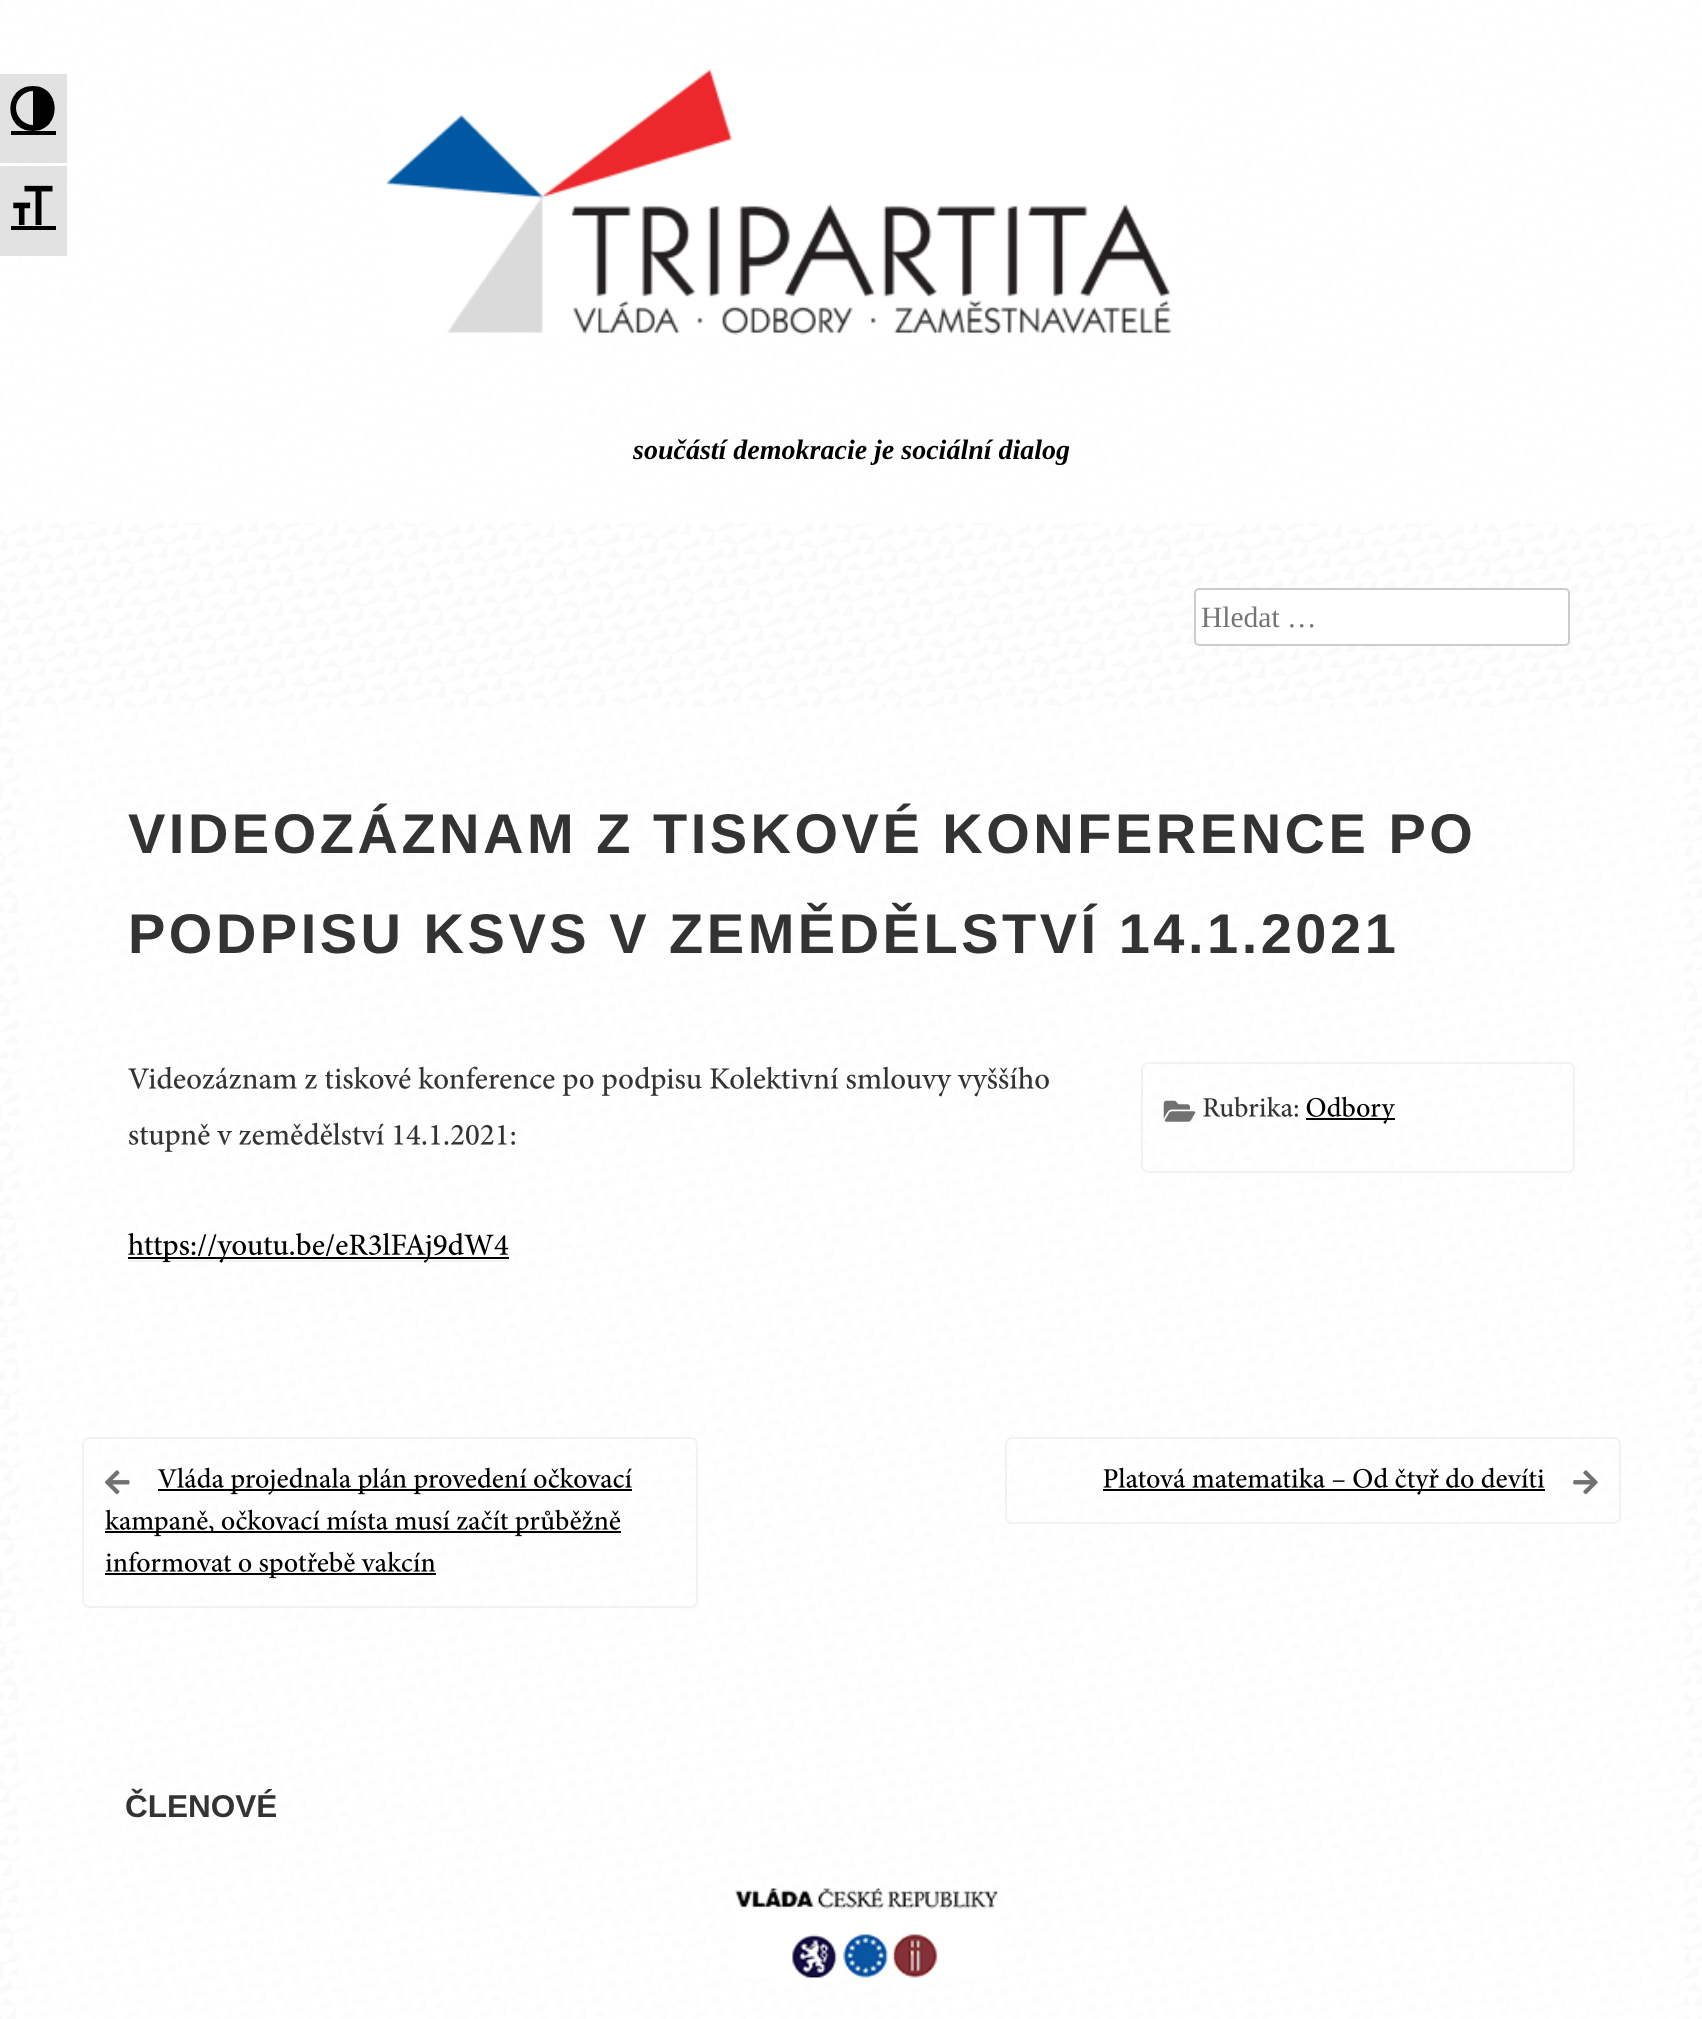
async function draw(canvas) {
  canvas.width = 1702;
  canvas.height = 2019;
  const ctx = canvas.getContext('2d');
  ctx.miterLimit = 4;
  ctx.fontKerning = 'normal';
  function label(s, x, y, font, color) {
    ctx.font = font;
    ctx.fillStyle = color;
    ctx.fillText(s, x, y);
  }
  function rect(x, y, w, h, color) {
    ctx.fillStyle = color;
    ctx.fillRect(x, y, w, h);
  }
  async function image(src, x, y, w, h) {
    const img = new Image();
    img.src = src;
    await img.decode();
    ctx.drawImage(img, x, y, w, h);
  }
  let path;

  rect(0, 0, 1702, 2019, '#fff');
  await image('assets/img1.png', 0, 0, 1702, 2019);
  rect(0, 0, 1702, 523, '#ffffffb3');
  rect(0, 74, 67, 89, '#e2e2e2');
  ctx.fillStyle = '#000';
  path = new Path2D('M33 86C3 86 3 131 33 131C62 131 62 86 33 86ZM16 108C16 99 24 91 33 91V125C24 125 16 117 16 108Z');
  ctx.fill(path);
  rect(11, 131, 45, 4, '#000');
  rect(0, 166, 67, 90, '#e2e2e2');
  await image('assets/img2.png', 13, 185, 40, 41);
  rect(11, 226, 45, 4, '#000');
  await image('assets/img3.png', 386, 69, 786, 266);
  label('součástí demokracie je sociální dialog', 633, 459, 'italic bold 28px Liberation Serif', '#000');
  ctx.fillStyle = '#fff';
  ctx.beginPath();
  ctx.roundRect(1195, 589, 374, 56, 4);
  ctx.fill();
  ctx.strokeStyle = '#ccc';
  ctx.lineWidth = 2;
  ctx.stroke();
  label('Hledat …', 1201, 627, '29.5px Liberation Serif', '#757575');
  rect(18, 707, 1667, 1312, '#ffffff99');
  ctx.letterSpacing = '3.5px';
  label('VIDEOZÁZNAM Z TISKOVÉ KONFERENCE PO', 128, 853, 'bold 56px Liberation Sans', '#333');
  label('PODPISU KSVS V ZEMĚDĚLSTVÍ 14.1.2021', 128, 953, 'bold 56px Liberation Sans', '#333');
  await image('assets/img4.png', 128, 1066, 921, 31);
  await image('assets/img5.png', 129, 1122, 386, 30);
  rect(128, 1257, 381, 2, '#000');
  await image('assets/img7.png', 128, 1260, 382, 2);
  await image('assets/img6.png', 128, 1232, 381, 31);
  ctx.beginPath();
  ctx.roundRect(1142, 1063, 432, 109, 6);
  ctx.strokeStyle = '#f2f2f2';
  ctx.stroke();
  await image('assets/img8.png', 1163, 1100, 33, 22);
  await image('assets/img9.png', 1203, 1096, 95, 21);
  rect(1306, 1118, 89, 2, '#000');
  await image('assets/img10.png', 1306, 1096, 89, 28);
  ctx.beginPath();
  ctx.roundRect(83, 1438, 614, 169, 6);
  ctx.stroke();
  await image('assets/img11.png', 105, 1470, 25, 25);
  rect(158, 1489, 474, 2, '#000');
  await image('assets/img12.png', 158, 1467, 474, 28);
  rect(105, 1531, 516, 2, '#000');
  await image('assets/img13.png', 105, 1509, 516, 28);
  rect(105, 1573, 331, 2, '#000');
  await image('assets/img14.png', 105, 1551, 331, 28);
  ctx.beginPath();
  ctx.roundRect(1006, 1438, 614, 85, 6);
  ctx.stroke();
  rect(1103, 1489, 442, 2, '#000');
  await image('assets/img15.png', 1103, 1467, 442, 28);
  await image('assets/img16.png', 1573, 1470, 25, 25);
  ctx.letterSpacing = '0px';
  label('ČLENOVÉ', 125, 1817, 'bold 31.5px Liberation Sans', '#333');
  await image('assets/img17.png', 735, 1888, 263, 90);
}

draw(document.querySelector('canvas'));
